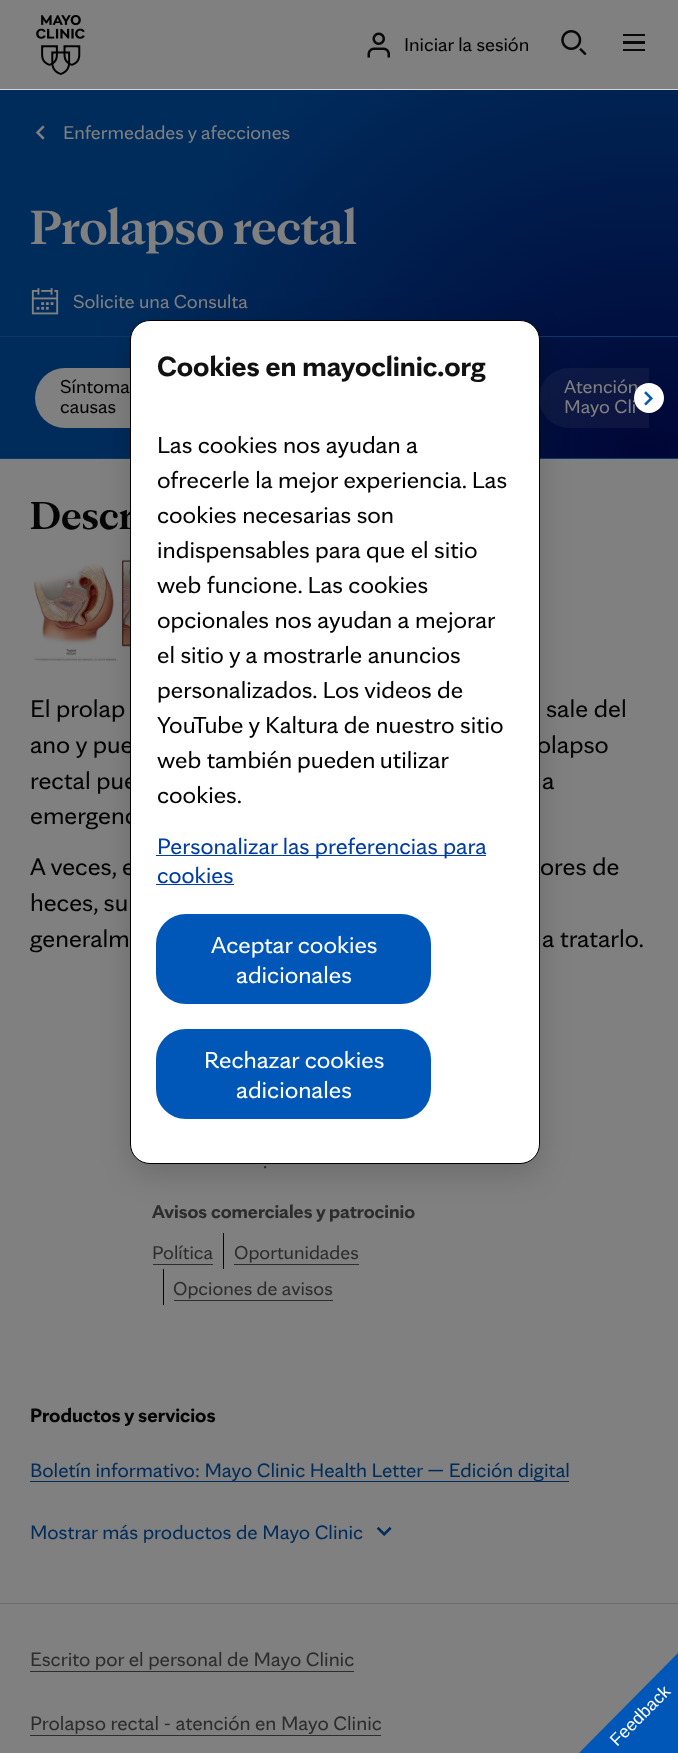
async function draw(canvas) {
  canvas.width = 678;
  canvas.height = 1753;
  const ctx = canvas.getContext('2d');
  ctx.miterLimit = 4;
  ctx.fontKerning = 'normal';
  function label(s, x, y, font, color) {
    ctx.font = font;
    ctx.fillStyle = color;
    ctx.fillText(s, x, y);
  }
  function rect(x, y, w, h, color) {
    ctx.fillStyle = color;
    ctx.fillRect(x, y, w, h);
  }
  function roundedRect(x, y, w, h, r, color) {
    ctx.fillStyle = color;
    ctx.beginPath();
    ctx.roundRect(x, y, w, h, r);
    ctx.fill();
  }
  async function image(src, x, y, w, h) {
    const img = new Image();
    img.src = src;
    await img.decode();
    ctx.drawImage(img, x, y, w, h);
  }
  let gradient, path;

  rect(0, 0, 678, 1753, '#808080');
  rect(0, 89, 678, 1, '#d6d6d6');
  await image('assets/img1.png', 36, 15, 49, 60);
  await image('assets/img2.png', 367, 32, 23, 26);
  label('Iniciar la sesión', 404, 51, '20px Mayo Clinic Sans', '#040404');
  await image('assets/img3.png', 561, 30, 26, 25);
  rect(623, 34, 22, 2, '#080808');
  rect(623, 41, 22, 3, '#080808');
  rect(623, 49, 22, 2, '#080808');
  gradient = ctx.createRadialGradient(650, 502.59, 0, 650, 502.59, 541);
  gradient.addColorStop(0, '#000636');
  gradient.addColorStop(1, '#002c5c');
  ctx.fillStyle = gradient;
  ctx.beginPath();
  ctx.rect(0, 90, 678, 368);
  ctx.save();
  ctx.clip();
  ctx.scale(1, 493 / 541);
  ctx.fillRect(0, 0, 678, 1924);
  ctx.restore();
  rect(0, 458, 678, 1, '#0a396b');
  await image('assets/img4.png', 35, 125, 10, 15);
  label('Enfermedades y afecciones', 63, 139, '20px Mayo Clinic Sans', '#808080');
  label('Prolapso rectal', 30, 244, 'bold 51.75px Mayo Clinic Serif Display', '#808080');
  await image('assets/img5.png', 31, 288, 28, 27);
  label('Solicite una Consulta', 73, 308, '20px Mayo Clinic Sans', '#808080');
  rect(0, 336, 678, 1, '#0a396b');
  roundedRect(35, 368, 136, 60, 30, '#808080');
  label('Síntoma', 60, 393, '20px Mayo Clinic Sans', '#040404');
  label('causas', 60, 413, '20px Mayo Clinic Sans', '#040404');
  ctx.fillStyle = '#8080801a';
  ctx.beginPath();
  ctx.roundRect(539, 368, 110, 60, [30, 0, 0, 30]);
  ctx.fill();
  label('Atención', 564, 393, '20px Mayo Clinic Sans', '#808080');
  label('Mayo Cli', 564, 413, '20px Mayo Clinic Sans', '#808080');
  ctx.fillStyle = '#fff';
  path = new Path2D('M649 413C640.5 413 634 406 634 398C634 389.5 640.5 383 649 383C657 383 664 389.5 664 398C664 406 657 413 649 413Z');
  ctx.fill(path);
  await image('assets/img6.png', 644, 391, 9, 15);
  label('Descr', 30, 529, 'bold 42px Mayo Clinic Serif Display', '#040404');
  await image('assets/img7.png', 33, 559, 97, 102);
  label('El prolap', 30, 717, '26px Mayo Clinic Sans', '#040404');
  label('sale del', 546, 717, '26px Mayo Clinic Sans', '#040404');
  label('ano y pue', 30, 753, '26px Mayo Clinic Sans', '#040404');
  label('olapso', 537, 753, '26px Mayo Clinic Sans', '#040404');
  label('rectal pue', 30, 789, '26px Mayo Clinic Sans', '#040404');
  label('a', 542, 789, '26px Mayo Clinic Sans', '#040404');
  label('emergenc', 30, 824, '26px Mayo Clinic Sans', '#040404');
  label('A veces, e', 30, 875, '26px Mayo Clinic Sans', '#040404');
  label('ores de', 540, 875, '26px Mayo Clinic Sans', '#040404');
  label('heces, su', 30, 911, '26px Mayo Clinic Sans', '#040404');
  label('generalm', 30, 947, '26px Mayo Clinic Sans', '#040404');
  label('a tratarlo.', 542, 947, '26px Mayo Clinic Sans', '#040404');
  label('.', 263, 1168, '20px Mayo Clinic Sans', '#2d2d2d');
  label('Avisos comerciales y patrocinio', 152, 1218, 'bold 20px Mayo Clinic Sans', '#2d2d2d');
  label('Política', 152, 1259, '20px Mayo Clinic Sans', '#2d2d2d');
  rect(153, 1264, 60, 1, '#2d2d2d');
  rect(223, 1233, 1, 36, '#040404');
  label('Oportunidades', 234, 1259, '20px Mayo Clinic Sans', '#2d2d2d');
  rect(234, 1264, 125, 1, '#2d2d2d');
  rect(163, 1269, 1, 36, '#040404');
  label('Opciones de avisos', 173, 1295, '20px Mayo Clinic Sans', '#2d2d2d');
  rect(174, 1300, 159, 1, '#2d2d2d');
  label('Productos y servicios', 30, 1422, 'bold 20.85px Mayo Clinic Sans', '#040404');
  rect(30, 1481, 539, 1, '#002c5c');
  label('Boletín informativo: Mayo Clinic Health Letter — Edición digital', 30, 1477, '20.85px Mayo Clinic Sans', '#002c5c');
  label('Mostrar más productos de Mayo Clinic', 30, 1539, '20.85px Mayo Clinic Sans', '#002c5c');
  await image('assets/img8.png', 376, 1526, 16, 10);
  rect(0, 1603, 678, 1, '#6b6b6b');
  label('Escrito por el personal de Mayo Clinic', 30, 1666, '20.85px Mayo Clinic Sans', '#2d2d2d');
  rect(30, 1671, 324, 1, '#2d2d2d');
  label('Prolapso rectal - atención en Mayo Clinic', 30, 1730, '20.85px Mayo Clinic Sans', '#2d2d2d');
  rect(30, 1735, 351, 1, '#2d2d2d');
  ctx.fillStyle = '#00000029';
  ctx.filter = 'blur(15px)';
  ctx.beginPath();
  ctx.roundRect(130, 330, 410, 844, 20);
  ctx.fill();
  ctx.filter = 'none';
  ctx.fillStyle = '#fff';
  ctx.beginPath();
  ctx.roundRect(130.5, 320.5, 409, 843, 19.5);
  ctx.fill();
  ctx.strokeStyle = '#000';
  ctx.stroke();
  label('Cookies en mayoclinic.org', 157, 376, 'bold 30px Mayo Clinic Sans', '#111');
  label('Las cookies nos ayudan a', 157, 453, '25px Mayo Clinic Sans', '#040404');
  label('ofrecerle la mejor experiencia. Las', 157, 488, '25px Mayo Clinic Sans', '#040404');
  label('cookies necesarias son', 157, 523, '25px Mayo Clinic Sans', '#040404');
  label('indispensables para que el sitio', 157, 558, '25px Mayo Clinic Sans', '#040404');
  label('web funcione. Las cookies', 157, 593, '25px Mayo Clinic Sans', '#040404');
  label('opcionales nos ayudan a mejorar', 157, 628, '25px Mayo Clinic Sans', '#040404');
  label('el sitio y a mostrarle anuncios', 157, 663, '25px Mayo Clinic Sans', '#040404');
  label('personalizados. Los videos de', 157, 698, '25px Mayo Clinic Sans', '#040404');
  label('YouTube y Kaltura de nuestro sitio', 157, 733, '25px Mayo Clinic Sans', '#040404');
  label('web también', 157, 768, '25px Mayo Clinic Sans', '#040404');
  ctx.wordSpacing = '-1px';
  label('pueden utilizar', 297, 768, '25px Mayo Clinic Sans', '#040404');
  ctx.wordSpacing = '0px';
  label('cookies.', 157, 803, '25px Mayo Clinic Sans', '#040404');
  rect(156, 855, 330, 1, '#003da5');
  label('Personalizar las preferencias para', 157, 854, '24px Mayo Clinic Sans', '#003da5');
  label('cookies', 157, 883, '24px Mayo Clinic Sans', '#003da5');
  rect(156, 884, 78, 1, '#003da5');
  ctx.fillStyle = '#0057b8';
  ctx.beginPath();
  ctx.roundRect(157.5, 915.5, 272, 87, 28.5);
  ctx.fill();
  ctx.strokeStyle = '#0057b8';
  ctx.lineWidth = 3;
  ctx.stroke();
  label('Aceptar cookies', 211, 953, '25px Mayo Clinic Sans', '#fff');
  label('adicionales', 236, 983, '25px Mayo Clinic Sans', '#fff');
  ctx.fillStyle = '#0057b8';
  ctx.beginPath();
  ctx.roundRect(157.5, 1030.5, 272, 87, 28.5);
  ctx.fill();
  ctx.stroke();
  label('Rechazar cookies', 204, 1068, '25px Mayo Clinic Sans', '#fff');
  label('adicionales', 236, 1098, '25px Mayo Clinic Sans', '#fff');
  ctx.fillStyle = '#0057b8';
  path = new Path2D('M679 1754H578L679 1652Z');
  ctx.fill(path);
  ctx.font = '17.5px Liberation Sans';
  ctx.fillStyle = '#fff';
  ctx.save();
  ctx.translate(617, 1747);
  ctx.rotate(-45 * Math.PI / 180);
  ctx.fillText('Feedback', 0, 0);
  ctx.restore();
}

draw(document.querySelector('canvas'));
